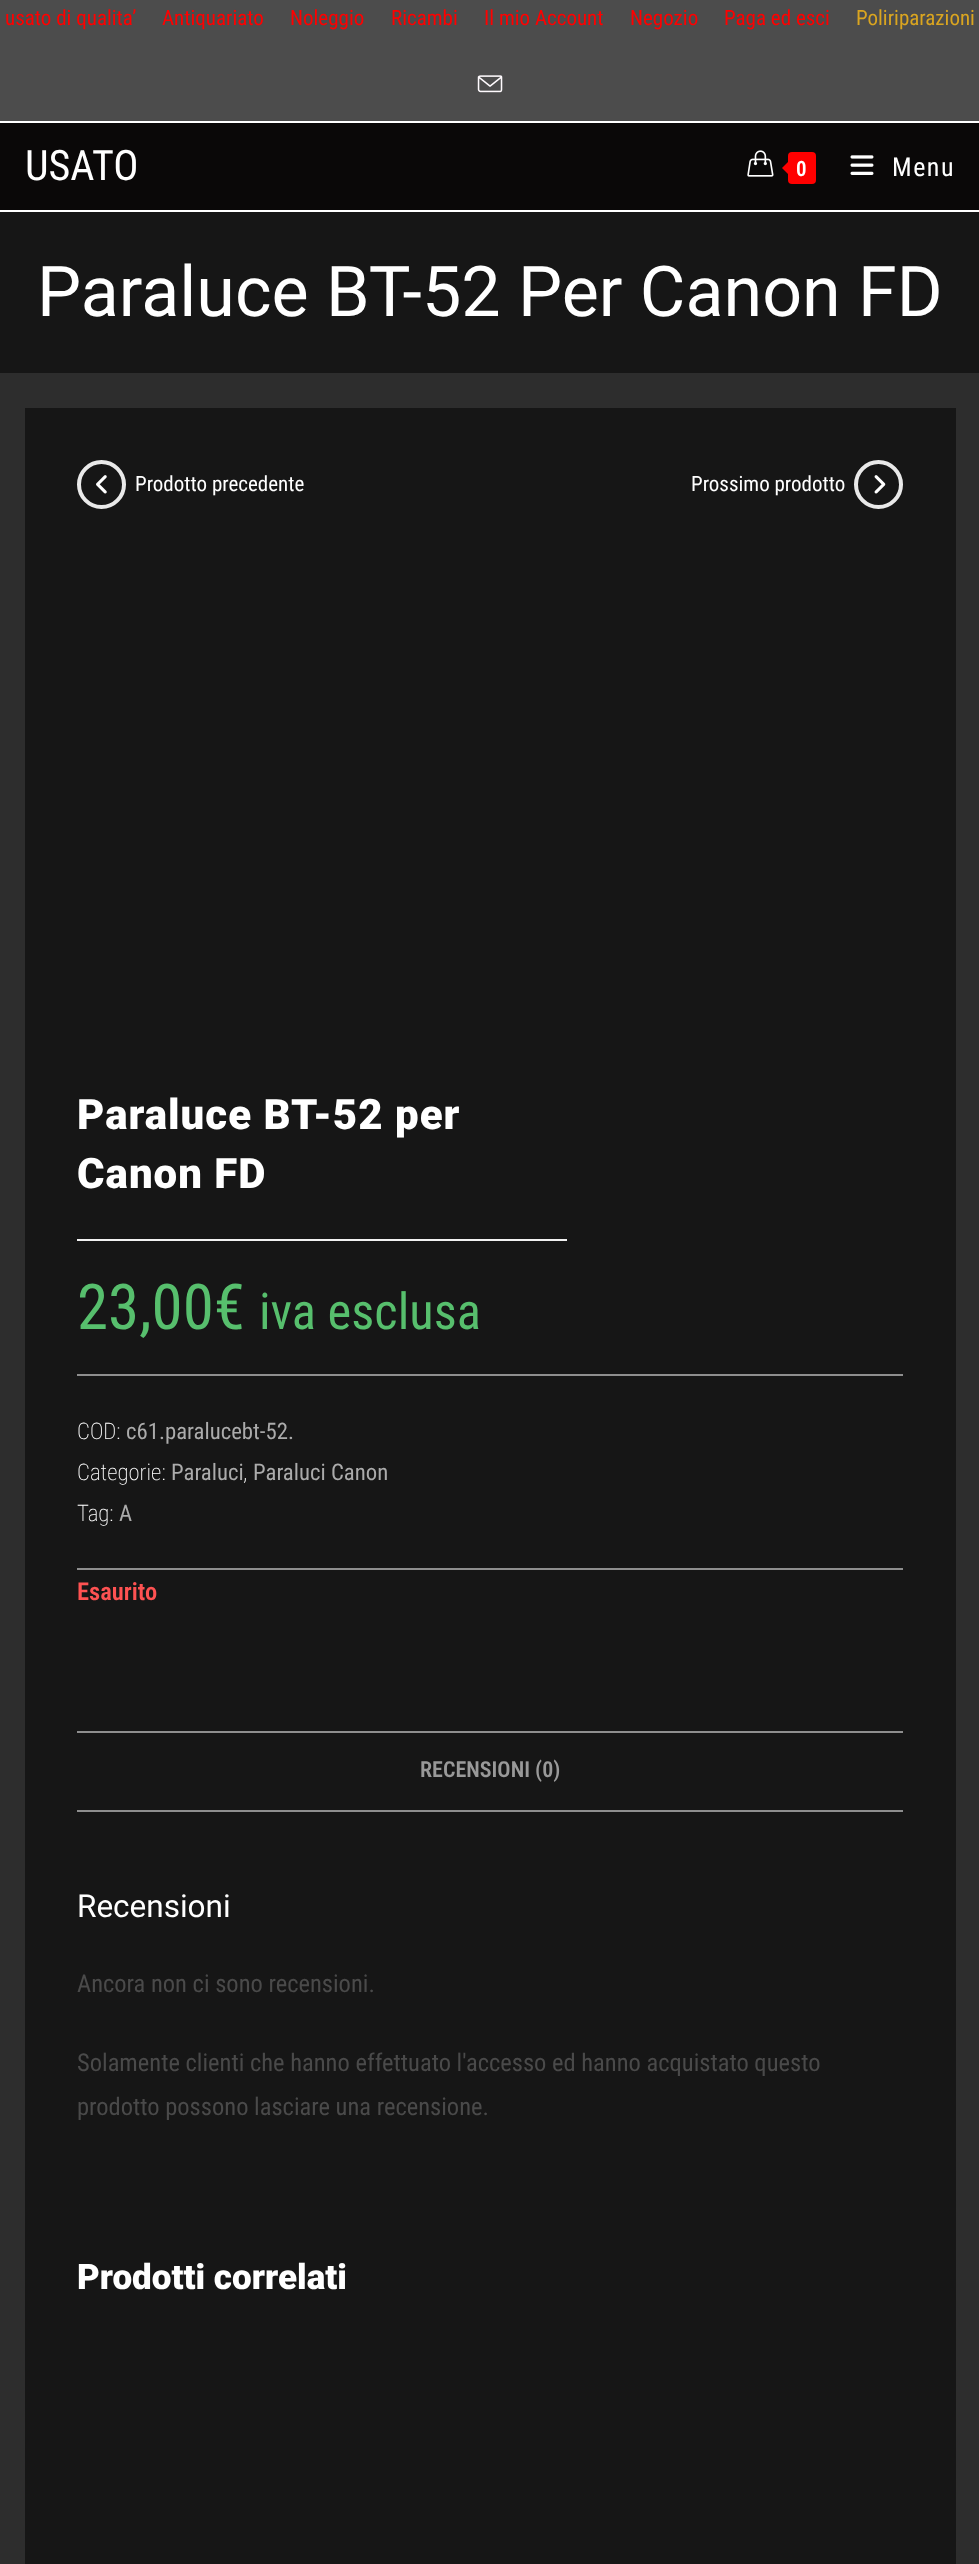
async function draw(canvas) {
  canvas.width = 979;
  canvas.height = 2564;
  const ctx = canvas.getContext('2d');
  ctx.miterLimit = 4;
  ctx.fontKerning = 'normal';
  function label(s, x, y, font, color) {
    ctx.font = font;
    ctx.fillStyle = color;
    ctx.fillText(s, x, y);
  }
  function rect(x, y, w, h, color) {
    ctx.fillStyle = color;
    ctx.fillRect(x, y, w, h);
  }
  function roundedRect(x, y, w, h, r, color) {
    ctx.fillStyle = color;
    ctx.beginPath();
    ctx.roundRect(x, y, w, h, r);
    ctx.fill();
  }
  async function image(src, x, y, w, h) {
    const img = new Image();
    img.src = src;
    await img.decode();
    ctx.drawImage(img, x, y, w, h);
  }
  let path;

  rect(0, 0, 979, 2564, '#2d2d2d');
  rect(0, 0, 979, 121, '#4c4c4c');
  rect(0, 121, 979, 2, '#fff');
  label('usato di qualita’', 5, 25, '21px Roboto Condensed', '#f00');
  label('Antiquariato', 162, 25, '21px Roboto Condensed', '#f00');
  label('Noleggio', 290, 25, '21px Roboto Condensed', '#f00');
  label('Ricambi', 391, 25, '21px Roboto Condensed', '#f00');
  label('Il mio Account', 484, 25, '21px Roboto Condensed', '#f00');
  label('Negozio', 630, 25, '21px Roboto Condensed', '#f00');
  label('Paga ed esci', 724, 25, '21px Roboto Condensed', '#f00');
  label('Poliriparazioni', 856, 25, '21px Roboto Condensed', '#daa520');
  await image('assets/img1.png', 477, 75, 26, 18);
  rect(0, 123, 979, 87, '#0a0808');
  rect(0, 210, 979, 2, '#fff');
  label('USATO', 25, 180, '42px Roboto Condensed', '#fff');
  await image('assets/img2.png', 747, 150, 27, 27);
  roundedRect(788, 152, 28, 32, 4, '#f00');
  path = new Path2D('M791 159V177L782 168Z');
  ctx.fill(path);
  ctx.letterSpacing = '1.5px';
  label('0', 796, 176, '600 21px Roboto Condensed', '#fff');
  await image('assets/img3.png', 850, 155, 24, 20);
  label('Menu', 892, 176, '26px Roboto Condensed', '#fff');
  rect(0, 212, 979, 161, '#161616');
  ctx.letterSpacing = '0px';
  label('Paraluce BT-52 Per Canon FD', 37, 316, '70px Roboto', '#fff');
  rect(25, 408, 931, 2156, '#161616');
  ctx.beginPath();
  ctx.arc(101.5, 484.5, 22.5, 0, 2 * Math.PI);
  ctx.strokeStyle = '#e9e9e9';
  ctx.lineWidth = 4;
  ctx.stroke();
  await image('assets/img4.png', 96, 475, 11, 19);
  label('Prodotto precedente', 135, 491, '21px Roboto Condensed', '#fff');
  label('Prossimo prodotto', 691, 491, '21px Roboto Condensed', '#fff');
  ctx.beginPath();
  ctx.arc(878.5, 484.5, 22.5, 0, 2 * Math.PI);
  ctx.stroke();
  await image('assets/img5.png', 874, 475, 12, 19);
  rect(77, 1239, 490, 2, '#f1f1f1');
  ctx.letterSpacing = '1px';
  label('Paraluce BT-52 per', 77, 1129, '900 42px Roboto', '#fff');
  label('Canon FD', 77, 1188, '900 42px Roboto', '#fff');
  ctx.letterSpacing = '0px';
  label('23,00€', 77, 1329, '63px Roboto Condensed', '#57bf6d');
  label('iva esclusa', 259, 1329, '50.5px Roboto Condensed', '#57bf6d');
  rect(77, 1374, 826, 2, '#8e8e8e');
  rect(77, 1568, 826, 2, '#8e8e8e');
  label('COD:', 77, 1439, '200 22.75px Roboto Condensed', '#fff');
  label('c61.paralucebt-52.', 126, 1439, '22.75px Roboto Condensed', '#ababab');
  label('Categorie:', 77, 1480, '200 22.75px Roboto Condensed', '#fff');
  label('Paraluci', 171, 1480, '22.75px Roboto Condensed', '#ababab');
  label(',', 243, 1480, '200 22.75px Roboto Condensed', '#fff');
  label('Paraluci Canon', 253, 1480, '22.75px Roboto Condensed', '#ababab');
  label('Tag:', 77, 1521, '200 22.75px Roboto Condensed', '#fff');
  label('A', 119, 1521, '22.75px Roboto Condensed', '#ababab');
  label('Esaurito', 77, 1600, '600 24.5px Roboto Condensed', '#fe5252');
  rect(77, 1731, 826, 2, '#8e8e8e');
  rect(77, 1810, 826, 2, '#8e8e8e');
  label('RECENSIONI (0)', 420, 1777, '600 22px Roboto Condensed', '#999');
  label('Recensioni', 77, 1917, '31.5px Roboto', '#fff');
  label('Ancora non ci sono recensioni.', 77, 1992, '24.5px Roboto Condensed', '#4a4a4a');
  label('Solamente clienti che hanno effettuato l\'accesso ed hanno acquistato questo', 77, 2071, '24.5px Roboto Condensed', '#4a4a4a');
  label('prodotto possono lasciare una recensione.', 77, 2115, '24.5px Roboto Condensed', '#4a4a4a');
  label('Prodotti correlati', 77, 2289, '900 35px Roboto', '#fff');
}

draw(document.querySelector('canvas'));
